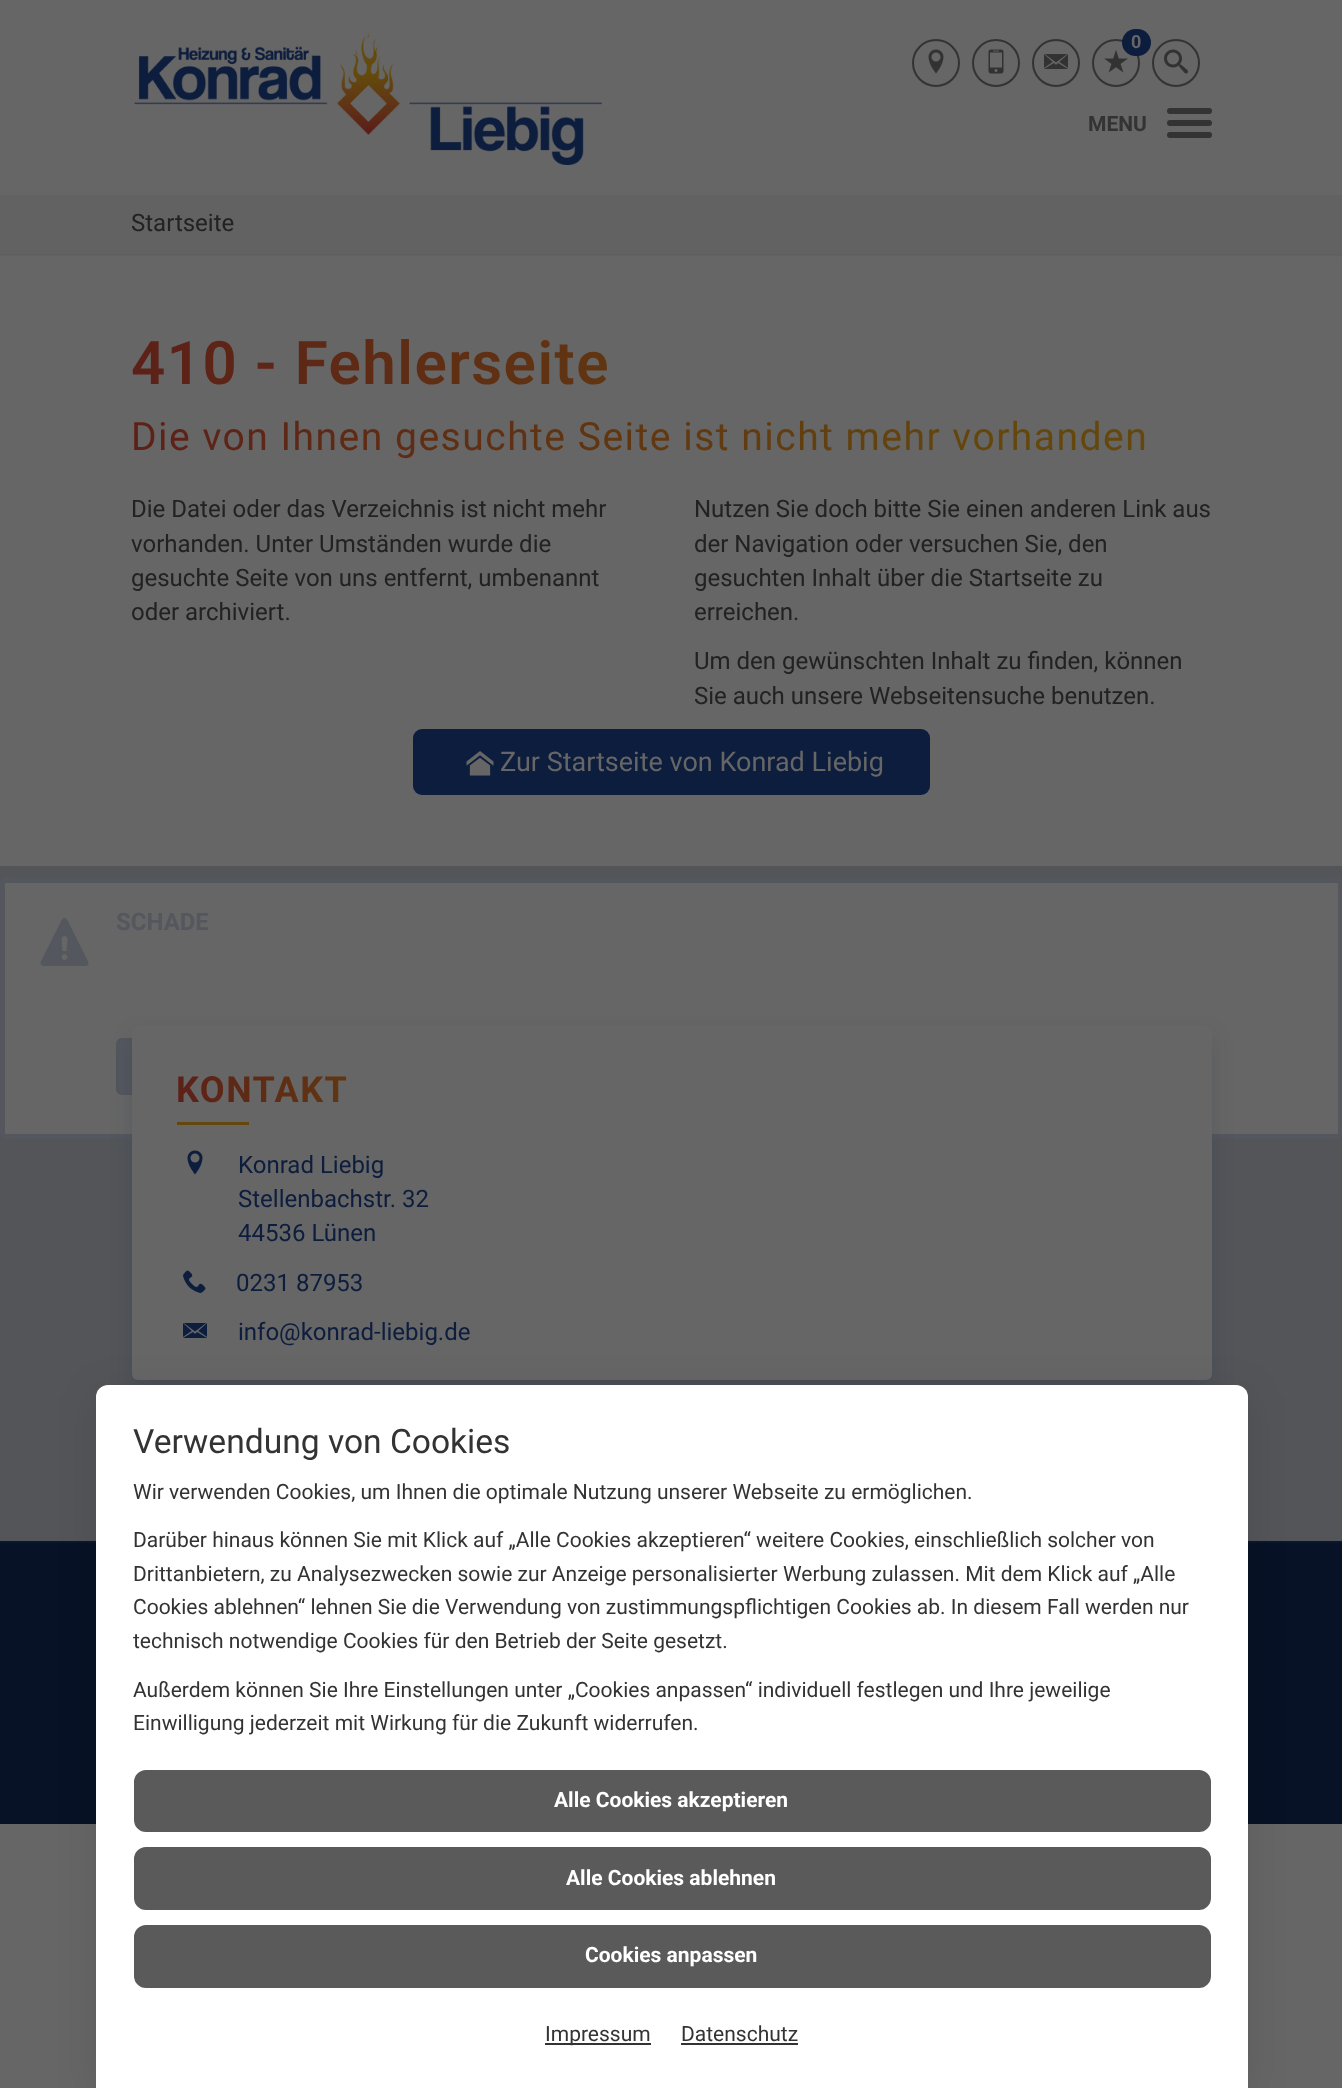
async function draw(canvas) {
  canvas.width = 1342;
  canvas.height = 2088;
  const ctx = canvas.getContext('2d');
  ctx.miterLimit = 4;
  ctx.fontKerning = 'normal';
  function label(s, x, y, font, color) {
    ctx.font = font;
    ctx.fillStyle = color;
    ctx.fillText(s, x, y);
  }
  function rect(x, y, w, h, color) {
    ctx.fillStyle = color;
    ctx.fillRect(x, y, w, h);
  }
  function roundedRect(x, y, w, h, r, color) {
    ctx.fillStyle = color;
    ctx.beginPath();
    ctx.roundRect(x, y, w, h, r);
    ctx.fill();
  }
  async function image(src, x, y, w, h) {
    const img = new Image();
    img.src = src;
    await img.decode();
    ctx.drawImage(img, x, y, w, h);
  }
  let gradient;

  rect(0, 0, 1342, 2088, '#666');
  await image('assets/img1.png', 134, 31, 468, 134);
  ctx.beginPath();
  ctx.arc(936, 63, 23, 0, 2 * Math.PI);
  ctx.strokeStyle = '#333';
  ctx.lineWidth = 2;
  ctx.stroke();
  await image('assets/img2.png', 928, 49, 16, 25);
  ctx.beginPath();
  ctx.arc(996, 63, 23, 0, 2 * Math.PI);
  ctx.stroke();
  await image('assets/img3.png', 988, 49, 16, 25);
  ctx.beginPath();
  ctx.arc(1056, 63, 23, 0, 2 * Math.PI);
  ctx.stroke();
  await image('assets/img4.png', 1044, 54, 24, 15);
  ctx.beginPath();
  ctx.arc(1116, 63, 23, 0, 2 * Math.PI);
  ctx.stroke();
  await image('assets/img5.png', 1104, 50, 24, 23);
  roundedRect(1122, 29, 29, 27, 13.5, '#0d1d3d');
  label('0', 1131, 48, 'bold 18px Roboto', '#666');
  ctx.beginPath();
  ctx.arc(1176, 63, 23, 0, 2 * Math.PI);
  ctx.stroke();
  await image('assets/img6.png', 1164, 49, 24, 25);
  label('MENU', 1088, 131, 'bold 21px Roboto', '#333');
  roundedRect(1167, 108, 45, 6, 3, '#333');
  roundedRect(1167, 120, 45, 6, 3, '#333');
  roundedRect(1167, 132, 45, 6, 3, '#333');
  ctx.fillStyle = '#0000001a';
  ctx.filter = 'blur(1px)';
  ctx.beginPath();
  ctx.rect(0, 197, 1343, 58);
  ctx.fill();
  ctx.filter = 'none';
  rect(0, 195, 1342, 59, '#626262');
  label('Startseite', 131, 231, '24px Roboto', '#222');
  ctx.letterSpacing = '1.5px';
  ctx.font = '600 60px Roboto';
  gradient = ctx.createLinearGradient(129, 386, 1213, 424);
  gradient.addColorStop(0, '#5c2018');
  gradient.addColorStop(0.8, '#64470c');
  ctx.fillStyle = gradient;
  ctx.fillText('410 - Fehlerseite', 131, 384);
  ctx.font = '39px Roboto';
  ctx.fillText('Die von Ihnen gesuchte Seite ist nicht mehr vorhanden', 131, 450);
  ctx.letterSpacing = '0px';
  label('Die Datei oder das Verzeichnis ist nicht mehr', 131, 517, '24px Roboto', '#222');
  label('vorhanden. Unter Umständen wurde die', 131, 552, '24px Roboto', '#222');
  label('gesuchte Seite von uns entfernt, umbenannt', 131, 586, '24px Roboto', '#222');
  label('oder archiviert.', 131, 620, '24px Roboto', '#222');
  label('Nutzen Sie doch bitte Sie einen anderen Link aus', 694, 517, '24px Roboto', '#222');
  label('der Navigation oder versuchen Sie, den', 694, 552, '24px Roboto', '#222');
  label('gesuchten Inhalt über die Startseite zu', 694, 586, '24px Roboto', '#222');
  label('erreichen.', 694, 620, '24px Roboto', '#222');
  label('Um den gewünschten Inhalt zu finden, können', 694, 669, '24px Roboto', '#222');
  label('Sie auch unsere Webseitensuche benutzen.', 694, 704, '24px Roboto', '#222');
  roundedRect(413, 729, 517, 66, 9, '#0d1d3d');
  await image('assets/img7.png', 466, 751, 28, 25);
  label('Zur Startseite von Konrad Liebig', 500, 771, '27px Roboto', '#666');
  rect(0, 1543, 1342, 281, '#081226');
  rect(0, 866, 1342, 675, '#535559');
  ctx.fillStyle = '#666';
  ctx.beginPath();
  ctx.roundRect(2.5, 880.5, 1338, 256, 3.5);
  ctx.fill();
  ctx.strokeStyle = '#54575e';
  ctx.lineWidth = 5;
  ctx.stroke();
  await image('assets/img8.png', 40, 918, 49, 48);
  label('SCHADE', 116, 930, 'bold 24px Roboto', '#54575e');
  ctx.beginPath();
  ctx.roundRect(117, 1039, 391, 55, 5);
  ctx.fill();
  ctx.strokeStyle = '#54565c';
  ctx.lineWidth = 2;
  ctx.stroke();
  ctx.fillStyle = '#0d1d3d26';
  ctx.filter = 'blur(11px)';
  ctx.beginPath();
  ctx.roundRect(132, 1037, 1080, 354, 6);
  ctx.fill();
  ctx.filter = 'none';
  roundedRect(132, 1026, 1080, 354, 6, '#666');
  ctx.letterSpacing = '1.5px';
  ctx.font = 'bold 36px Roboto';
  gradient = ctx.createLinearGradient(176, 1080, 1167, 1115);
  gradient.addColorStop(0, '#5c2018');
  gradient.addColorStop(0.3, '#64470c');
  ctx.fillStyle = gradient;
  ctx.fillText('KONTAKT', 176, 1102);
  rect(177, 1122, 72, 3, '#64470c');
  await image('assets/img9.png', 187, 1150, 16, 25);
  ctx.letterSpacing = '0px';
  label('Konrad Liebig', 238, 1173, '24px Roboto', '#0d1d3d');
  label('Stellenbachstr. 32', 238, 1207, '24px Roboto', '#0d1d3d');
  label('44536 Lünen', 238, 1241, '24px Roboto', '#0d1d3d');
  await image('assets/img10.png', 183, 1270, 23, 23);
  label('0231 87953', 236, 1291, '24px Roboto', '#0d1d3d');
  await image('assets/img11.png', 183, 1323, 24, 15);
  label('info@konrad-liebig.de', 238, 1340, '24px Roboto', '#0d1d3d');
  rect(0, 1541, 1342, 2, '#0a1731');
  ctx.fillStyle = '#0000001a';
  ctx.filter = 'blur(21px)';
  ctx.beginPath();
  ctx.roundRect(96, 1394, 1152, 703, 12);
  ctx.fill();
  ctx.filter = 'none';
  ctx.fillStyle = '#fff';
  ctx.beginPath();
  ctx.roundRect(96, 1385, 1152, 703, [12, 12, 0, 0]);
  ctx.fill();
  label('Verwendung von Cookies', 133, 1453, '33.6px Roboto', '#333');
  label('Wir verwenden Cookies, um Ihnen die optimale Nutzung unserer Webseite zu ermöglichen.', 133, 1499, '21px Roboto', '#333');
  label('Darüber hinaus können Sie mit Klick auf „Alle Cookies akzeptieren“ weitere Cookies, einschließlich solcher von', 133, 1547, '21px Roboto', '#333');
  label('Drittanbietern, zu Analysezwecken sowie zur Anzeige personalisierter Werbung zulassen. Mit dem Klick auf „Alle', 133, 1581, '21px Roboto', '#333');
  label('Cookies ablehnen“ lehnen Sie die Verwendung von zustimmungspflichtigen Cookies ab. In diesem Fall werden nur', 133, 1614, '21px Roboto', '#333');
  label('technisch notwendige Cookies für den Betrieb der Seite gesetzt.', 133, 1648, '21px Roboto', '#333');
  label('Außerdem können Sie Ihre Einstellungen unter „Cookies anpassen“ individuell festlegen und Ihre jeweilige', 133, 1697, '21px Roboto', '#333');
  label('Einwilligung jederzeit mit Wirkung für die Zukunft widerrufen.', 133, 1730, '21px Roboto', '#333');
  ctx.fillStyle = '#5a5a5a';
  ctx.beginPath();
  ctx.roundRect(135, 1771, 1075, 60, 11);
  ctx.fill();
  ctx.strokeStyle = '#5a5a5a';
  ctx.stroke();
  label('Alle Cookies akzeptieren', 554, 1807, 'bold 21px Roboto', '#fff');
  ctx.fillStyle = '#5a5a5a';
  ctx.beginPath();
  ctx.roundRect(135, 1848, 1075, 61, 11);
  ctx.fill();
  ctx.stroke();
  label('Alle Cookies ablehnen', 566, 1885, 'bold 21px Roboto', '#fff');
  ctx.fillStyle = '#5a5a5a';
  ctx.beginPath();
  ctx.roundRect(135, 1926, 1075, 61, 11);
  ctx.fill();
  ctx.stroke();
  label('Cookies anpassen', 585, 1962, 'bold 21px Roboto', '#fff');
  rect(545, 2043, 106, 2, '#333');
  label('Impressum', 545, 2041, '21px Roboto', '#333');
  label('Datenschutz', 681, 2041, '21px Roboto', '#333');
  rect(681, 2043, 117, 2, '#333');
}

draw(document.querySelector('canvas'));
